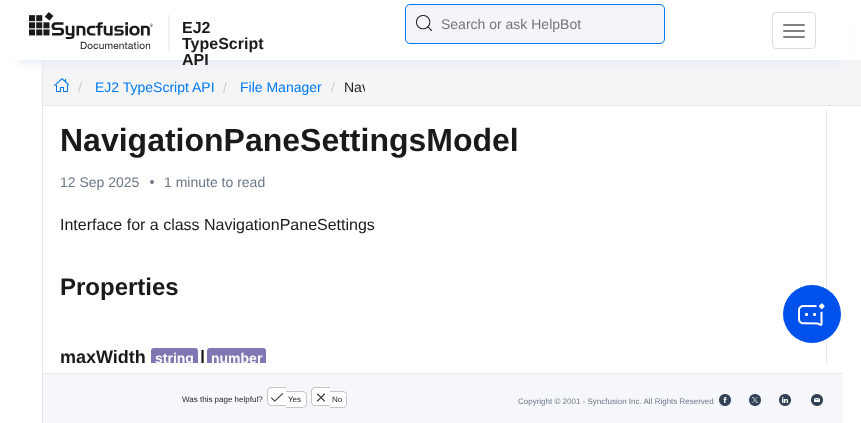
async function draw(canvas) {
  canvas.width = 861;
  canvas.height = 423;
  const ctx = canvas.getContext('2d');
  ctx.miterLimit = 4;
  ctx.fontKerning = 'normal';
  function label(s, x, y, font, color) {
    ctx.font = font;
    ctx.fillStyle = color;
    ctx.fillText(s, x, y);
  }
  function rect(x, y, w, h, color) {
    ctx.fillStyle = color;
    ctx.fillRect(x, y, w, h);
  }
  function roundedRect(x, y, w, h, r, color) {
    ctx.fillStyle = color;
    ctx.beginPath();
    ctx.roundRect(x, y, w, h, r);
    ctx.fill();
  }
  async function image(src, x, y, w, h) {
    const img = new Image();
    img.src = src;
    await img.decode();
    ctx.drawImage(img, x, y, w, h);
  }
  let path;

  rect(0, 0, 861, 423, '#fff');
  rect(43, 60, 818, 45, '#f5f5f7');
  await image('assets/img3.png', 54, 78, 15, 14);
  rect(42, 60, 1, 363, '#e7e7e7');
  ctx.fillStyle = '#e2eaf5';
  ctx.filter = 'blur(5.5px)';
  ctx.beginPath();
  ctx.rect(18, 14, 825, 48);
  ctx.fill();
  ctx.filter = 'none';
  rect(12, 7, 837, 53, '#fff');
  await image('assets/img1.png', 29, 12, 141, 40);
  label('EJ2', 182, 33, 'bold 16px Liberation Sans', '#1a1a1a');
  label('TypeScript', 182, 49, 'bold 16px Liberation Sans', '#1a1a1a');
  label('API', 182, 65, 'bold 16px Liberation Sans', '#1a1a1a');
  roundedRect(405, 4, 260, 40, 5, '#f4f5f8');
  await image('assets/img2.png', 416, 15, 16, 16);
  ctx.beginPath();
  ctx.roundRect(405.5, 4.5, 259, 39, 4.5);
  ctx.strokeStyle = '#0079f3';
  ctx.stroke();
  label('Search or ask HelpBot', 441, 29, '14px Liberation Sans', '#757575');
  ctx.beginPath();
  ctx.roundRect(772.5, 12.5, 43, 36, 3.5);
  ctx.strokeStyle = '#ddd';
  ctx.stroke();
  roundedRect(783, 24, 22, 2, 1, '#808080');
  roundedRect(783, 30, 22, 2, 1, '#808080');
  roundedRect(783, 36, 22, 2, 1, '#808080');
  rect(43, 105, 818, 1, '#e7e7e7');
  label('/', 78, 92, '14px Liberation Sans', '#ccc');
  label('EJ2 TypeScript API', 95, 92, '14px Liberation Sans', '#0079f3');
  label('/', 223, 92, '14px Liberation Sans', '#ccc');
  label('File Manager', 240, 92, '14px Liberation Sans', '#0079f3');
  label('/', 331, 92, '14px Liberation Sans', '#ccc');
  ctx.save();
  ctx.beginPath();
  ctx.rect(34, 60, 331, 41);
  ctx.clip();
  label('Nav', 344, 92, '14px Liberation Sans', '#1a1a1a');
  ctx.restore();
  rect(826, 110, 1, 253, '#e7e7e7');
  label('NavigationPaneSettingsModel', 60, 151, 'bold 32px Liberation Sans', '#1a1a1a');
  label('12 Sep 2025', 60, 187, '14px Liberation Sans', '#6c7786');
  ctx.beginPath();
  ctx.arc(152, 182, 2, 0, 2 * Math.PI);
  ctx.fill();
  label('1 minute to read', 164, 187, '14px Liberation Sans', '#6c7786');
  label('Interface for a class NavigationPaneSettings', 60, 230, '16px Liberation Sans', '#1a1a1a');
  label('Properties', 60, 295, 'bold 24px Liberation Sans', '#1a1a1a');
  ctx.save();
  ctx.beginPath();
  ctx.rect(60, 110, 766, 253);
  ctx.clip();
  label('maxWidth', 60, 363, 'bold 18px Liberation Sans', '#1a1a1a');
  ctx.restore();
  ctx.fillStyle = '#8076b2';
  ctx.beginPath();
  ctx.roundRect(151, 348, 47, 15, [3, 3, 0, 0]);
  ctx.fill();
  ctx.save();
  ctx.beginPath();
  ctx.rect(60, 110, 766, 253);
  ctx.clip();
  label('string', 155, 363, 'bold 14px Liberation Sans', '#fff');
  label('|', 200, 363, 'bold 18px Liberation Sans', '#1a1a1a');
  ctx.restore();
  ctx.beginPath();
  ctx.roundRect(207, 348, 59, 15, [3, 3, 0, 0]);
  ctx.fill();
  ctx.save();
  ctx.beginPath();
  ctx.rect(60, 110, 766, 253);
  ctx.clip();
  label('number', 211, 363, 'bold 14px Liberation Sans', '#fff');
  ctx.restore();
  ctx.fillStyle = '#0050eb';
  ctx.beginPath();
  ctx.arc(812, 314, 29, 0, 2 * Math.PI);
  ctx.fill();
  await image('assets/img4.png', 798, 303, 27, 23);
  rect(43, 374, 800, 49, '#f5f7fa');
  rect(43, 373, 800, 1, '#eaeaea');
  label('Was this page helpful?', 182, 402, '8px Liberation Sans', '#22252a');
  ctx.fillStyle = '#fff';
  ctx.beginPath();
  ctx.roundRect(267, 387, 19, 19, [4, 0, 0, 4]);
  ctx.fill();
  ctx.fillStyle = '#c5c5c5';
  path = new Path2D('M271 387H286V406H271C269 406 267 404 267 402V391C267 389 269 387 271 387ZM271 388H286V405H271C269.5 405 268 403.5 268 402V391C268 389.5 269.5 388 271 388Z');
  ctx.fill(path, 'evenodd');
  ctx.fillStyle = '#fff';
  ctx.beginPath();
  ctx.roundRect(286, 391, 21, 17, [0, 4, 4, 0]);
  ctx.fill();
  ctx.fillStyle = '#c5c5c5';
  path = new Path2D('M286 391H300C307.5 391 307 393 307 399.5C307 406 307.5 408 300 408H286ZM286 392H300C307 392 306 393.5 306 399.5C306 405.5 307 407 300 407H286Z');
  ctx.fill(path, 'evenodd');
  await image('assets/img5.png', 271, 393, 12, 9);
  label('Yes', 288, 402, '8px Liberation Sans', '#22252a');
  ctx.fillStyle = '#fff';
  ctx.beginPath();
  ctx.roundRect(311, 387, 19, 19, [4, 0, 0, 4]);
  ctx.fill();
  ctx.fillStyle = '#c5c5c5';
  path = new Path2D('M315 387H330V406H315C313 406 311 404 311 402V391C311 389 313 387 315 387ZM315 388H330V405H315C313.5 405 312 403.5 312 402V391C312 389.5 313.5 388 315 388Z');
  ctx.fill(path, 'evenodd');
  ctx.fillStyle = '#fff';
  ctx.beginPath();
  ctx.roundRect(330, 391, 17, 17, [0, 4, 4, 0]);
  ctx.fill();
  ctx.fillStyle = '#c5c5c5';
  path = new Path2D('M330 391H341C347.5 391 347 393.5 347 399.5C347 405.5 347.5 408 341 408H330ZM330 392H341C347 392 346 394 346 399.5C346 405 347 407 341 407H330Z');
  ctx.fill(path, 'evenodd');
  await image('assets/img6.png', 317, 393, 8, 9);
  label('No', 332, 402, '8px Liberation Sans', '#22252a');
  label('Copyright © 2001 - Syncfusion Inc. All Rights Reserved', 518, 404, '8px Liberation Sans', '#6c7786');
  await image('assets/img7.png', 719, 394, 12, 12);
  await image('assets/img8.png', 749, 394, 12, 12);
  await image('assets/img9.png', 779, 394, 12, 12);
  await image('assets/img10.png', 811, 394, 12, 12);
}

draw(document.querySelector('canvas'));
